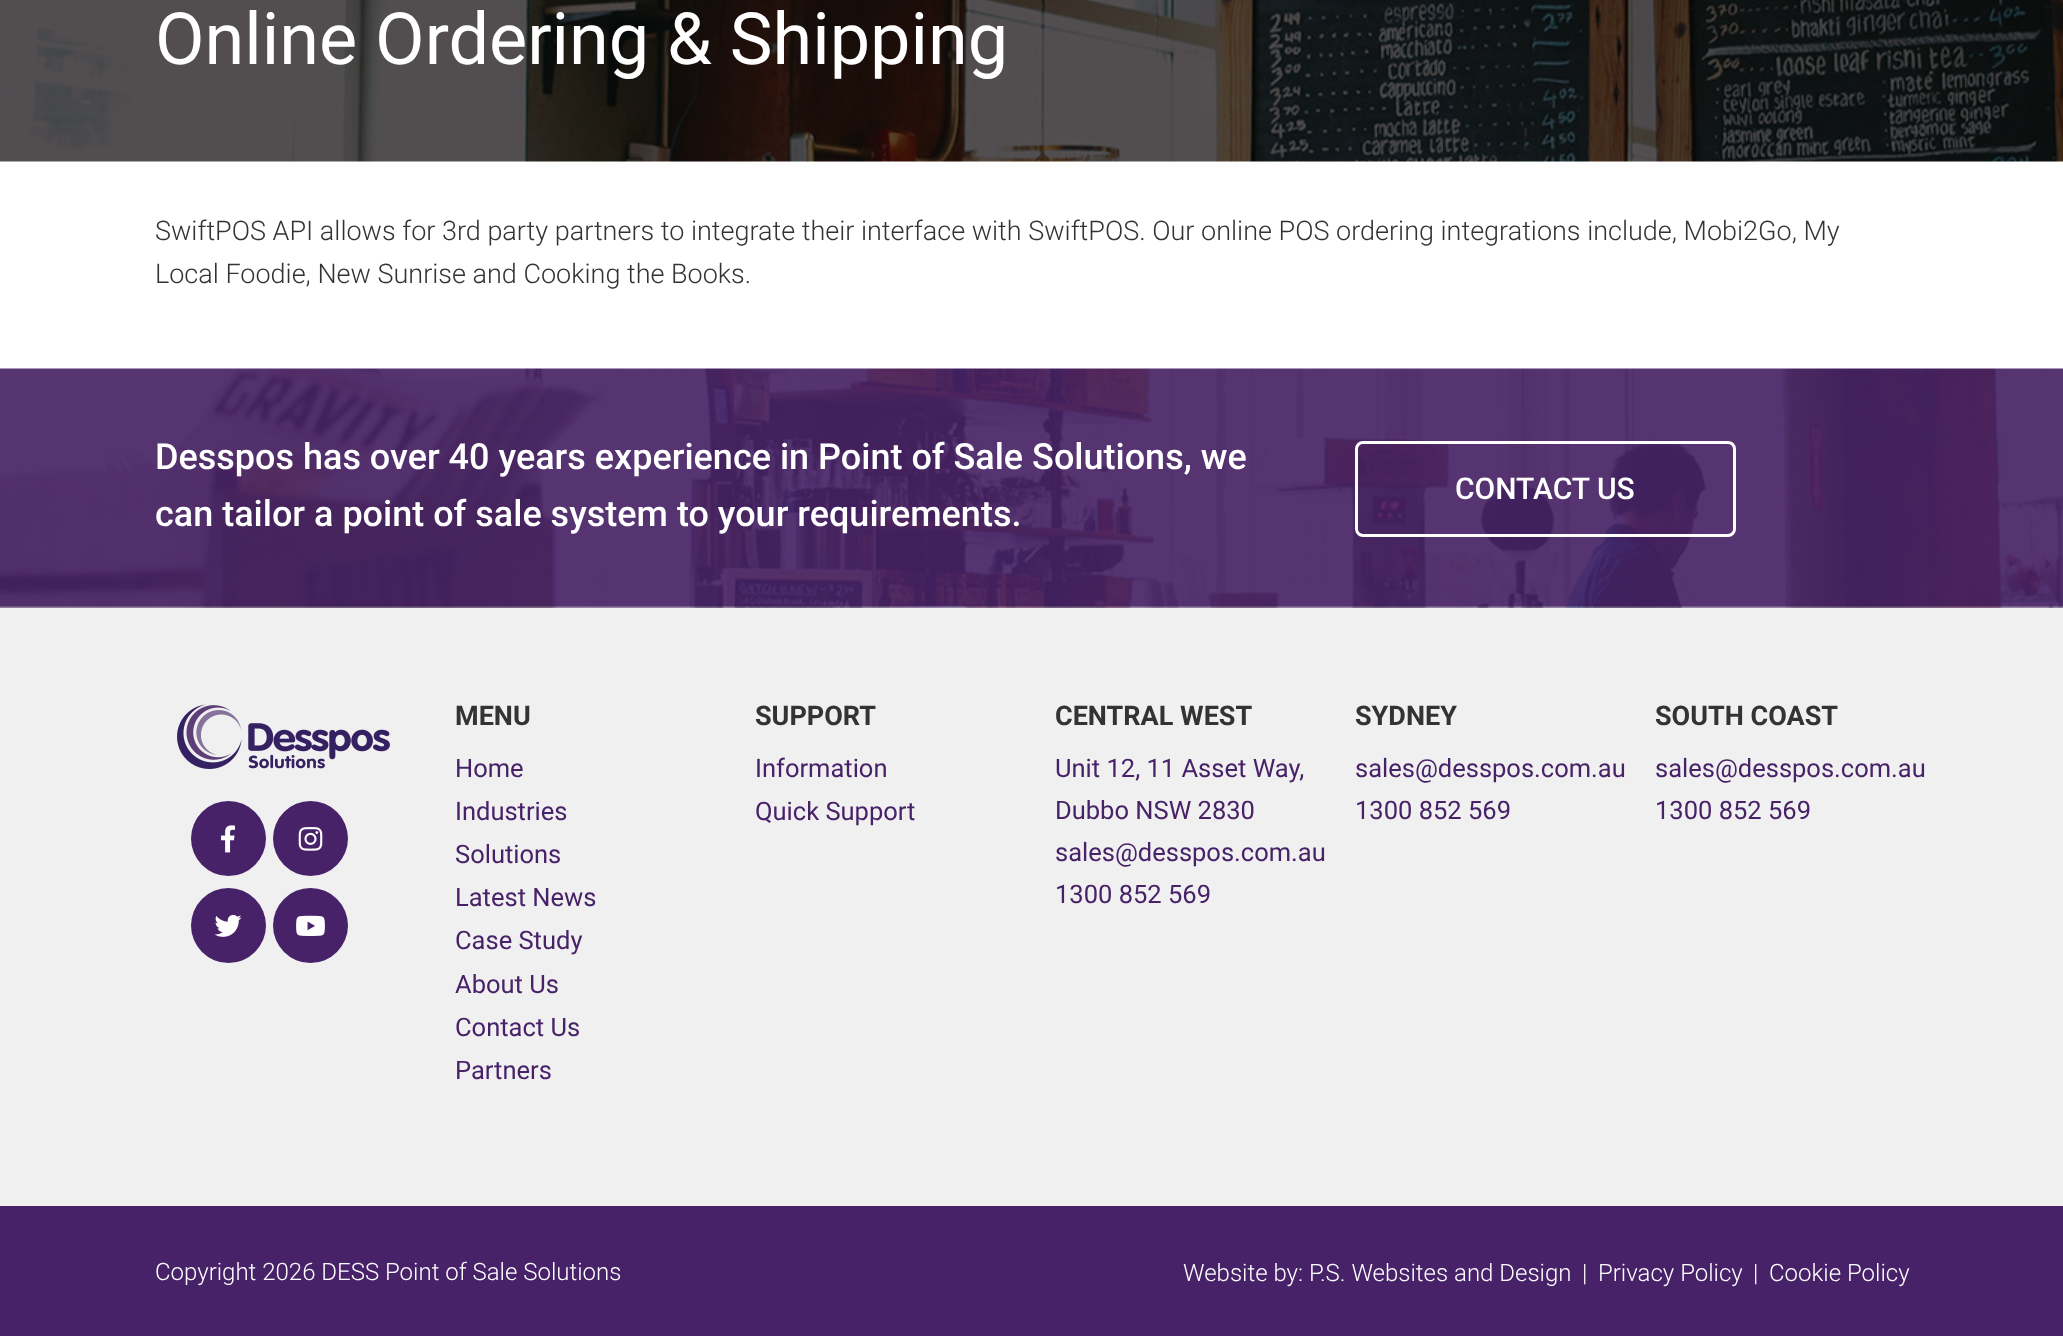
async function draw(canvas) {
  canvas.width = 2063;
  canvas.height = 1336;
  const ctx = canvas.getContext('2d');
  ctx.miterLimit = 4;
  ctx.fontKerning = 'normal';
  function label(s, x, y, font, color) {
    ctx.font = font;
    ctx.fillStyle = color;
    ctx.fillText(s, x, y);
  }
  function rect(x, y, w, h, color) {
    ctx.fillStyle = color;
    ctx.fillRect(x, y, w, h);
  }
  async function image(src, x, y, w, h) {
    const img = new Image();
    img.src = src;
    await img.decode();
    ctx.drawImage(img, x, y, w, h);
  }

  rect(0, 0, 2063, 1336, '#fff');
  await image('assets/img1.png', 0, 0, 2063, 162);
  label('Online Ordering & Shipping', 155, 64, '72px Roboto', '#fff');
  label('SwiftPOS API allows for 3rd party partners to integrate their interface with SwiftPOS. Our online POS ordering integrations include, Mobi2Go, My', 155, 240, '300 27px Roboto', '#333');
  label('Local Foodie, New Sunrise and Cooking the Books.', 155, 283, '300 27px Roboto', '#333');
  await image('assets/img2.png', 0, 368, 2063, 240);
  label('Desspos has over 40 years experience in Point of Sale Solutions, we', 155, 469, '500 36px Roboto', '#fff');
  label('can tailor a point of sale system to your requirements.', 155, 526, '500 36px Roboto', '#fff');
  ctx.beginPath();
  ctx.roundRect(1356.5, 442.5, 378, 93, 6.5);
  ctx.strokeStyle = '#fff';
  ctx.lineWidth = 3;
  ctx.stroke();
  label('CONTACT US', 1455, 499, '500 30px Roboto', '#fff');
  rect(0, 608, 2063, 598, '#f0f0f0');
  await image('assets/img3.png', 177, 704, 213, 65);
  ctx.fillStyle = '#482269';
  ctx.beginPath();
  ctx.arc(228.5, 838.5, 37.5, 0, 2 * Math.PI);
  ctx.fill();
  await image('assets/img4.png', 221, 825, 14, 28);
  ctx.beginPath();
  ctx.arc(310.5, 838.5, 37.5, 0, 2 * Math.PI);
  ctx.fill();
  await image('assets/img5.png', 298, 827, 25, 24);
  ctx.beginPath();
  ctx.arc(228.5, 925.5, 37.5, 0, 2 * Math.PI);
  ctx.fill();
  await image('assets/img6.png', 214, 914, 28, 23);
  ctx.beginPath();
  ctx.arc(310.5, 925.5, 37.5, 0, 2 * Math.PI);
  ctx.fill();
  await image('assets/img7.png', 296, 915, 29, 21);
  label('MENU', 455, 725, 'bold 27px Roboto', '#333');
  label('Home', 455, 777, '25.5px Roboto', '#482269');
  label('Industries', 455, 820, '25.5px Roboto', '#482269');
  label('Solutions', 455, 863, '25.5px Roboto', '#482269');
  label('Latest News', 455, 906, '25.5px Roboto', '#482269');
  label('Case Study', 455, 949, '25.5px Roboto', '#482269');
  label('About Us', 455, 993, '25.5px Roboto', '#482269');
  label('Contact Us', 455, 1036, '25.5px Roboto', '#482269');
  label('Partners', 455, 1079, '25.5px Roboto', '#482269');
  label('SUPPORT', 755, 725, 'bold 27px Roboto', '#333');
  label('Information', 755, 777, '25.5px Roboto', '#482269');
  label('Quick Support', 755, 820, '25.5px Roboto', '#482269');
  label('CENTRAL WEST', 1055, 725, 'bold 27px Roboto', '#333');
  label('Unit 12, 11 Asset Way,', 1055, 777, '25.5px Roboto', '#482269');
  label('Dubbo NSW 2830', 1055, 819, '25.5px Roboto', '#482269');
  label('sales@desspos.com.au', 1055, 861, '25.5px Roboto', '#482269');
  label('1300 852 569', 1055, 903, '25.5px Roboto', '#482269');
  label('SYDNEY', 1355, 725, 'bold 27px Roboto', '#333');
  label('sales@desspos.com.au', 1355, 777, '25.5px Roboto', '#482269');
  label('1300 852 569', 1355, 819, '25.5px Roboto', '#482269');
  label('SOUTH COAST', 1655, 725, 'bold 27px Roboto', '#333');
  label('sales@desspos.com.au', 1655, 777, '25.5px Roboto', '#482269');
  label('1300 852 569', 1655, 819, '25.5px Roboto', '#482269');
  rect(0, 1206, 2063, 130, '#482269');
  label('Copyright 2026 DESS Point of Sale Solutions', 155, 1280, '300 24px Roboto', '#fff');
  label('Website by: P.S. Websites and Design', 1183, 1281, '300 24px Roboto', '#fff');
  label('|', 1582, 1281, '300 24px Roboto', '#fff');
  label('Privacy Policy', 1598, 1281, '300 24px Roboto', '#fff');
  label('|', 1753, 1281, '300 24px Roboto', '#fff');
  label('Cookie Policy', 1769, 1281, '300 24px Roboto', '#fff');
}

draw(document.querySelector('canvas'));
